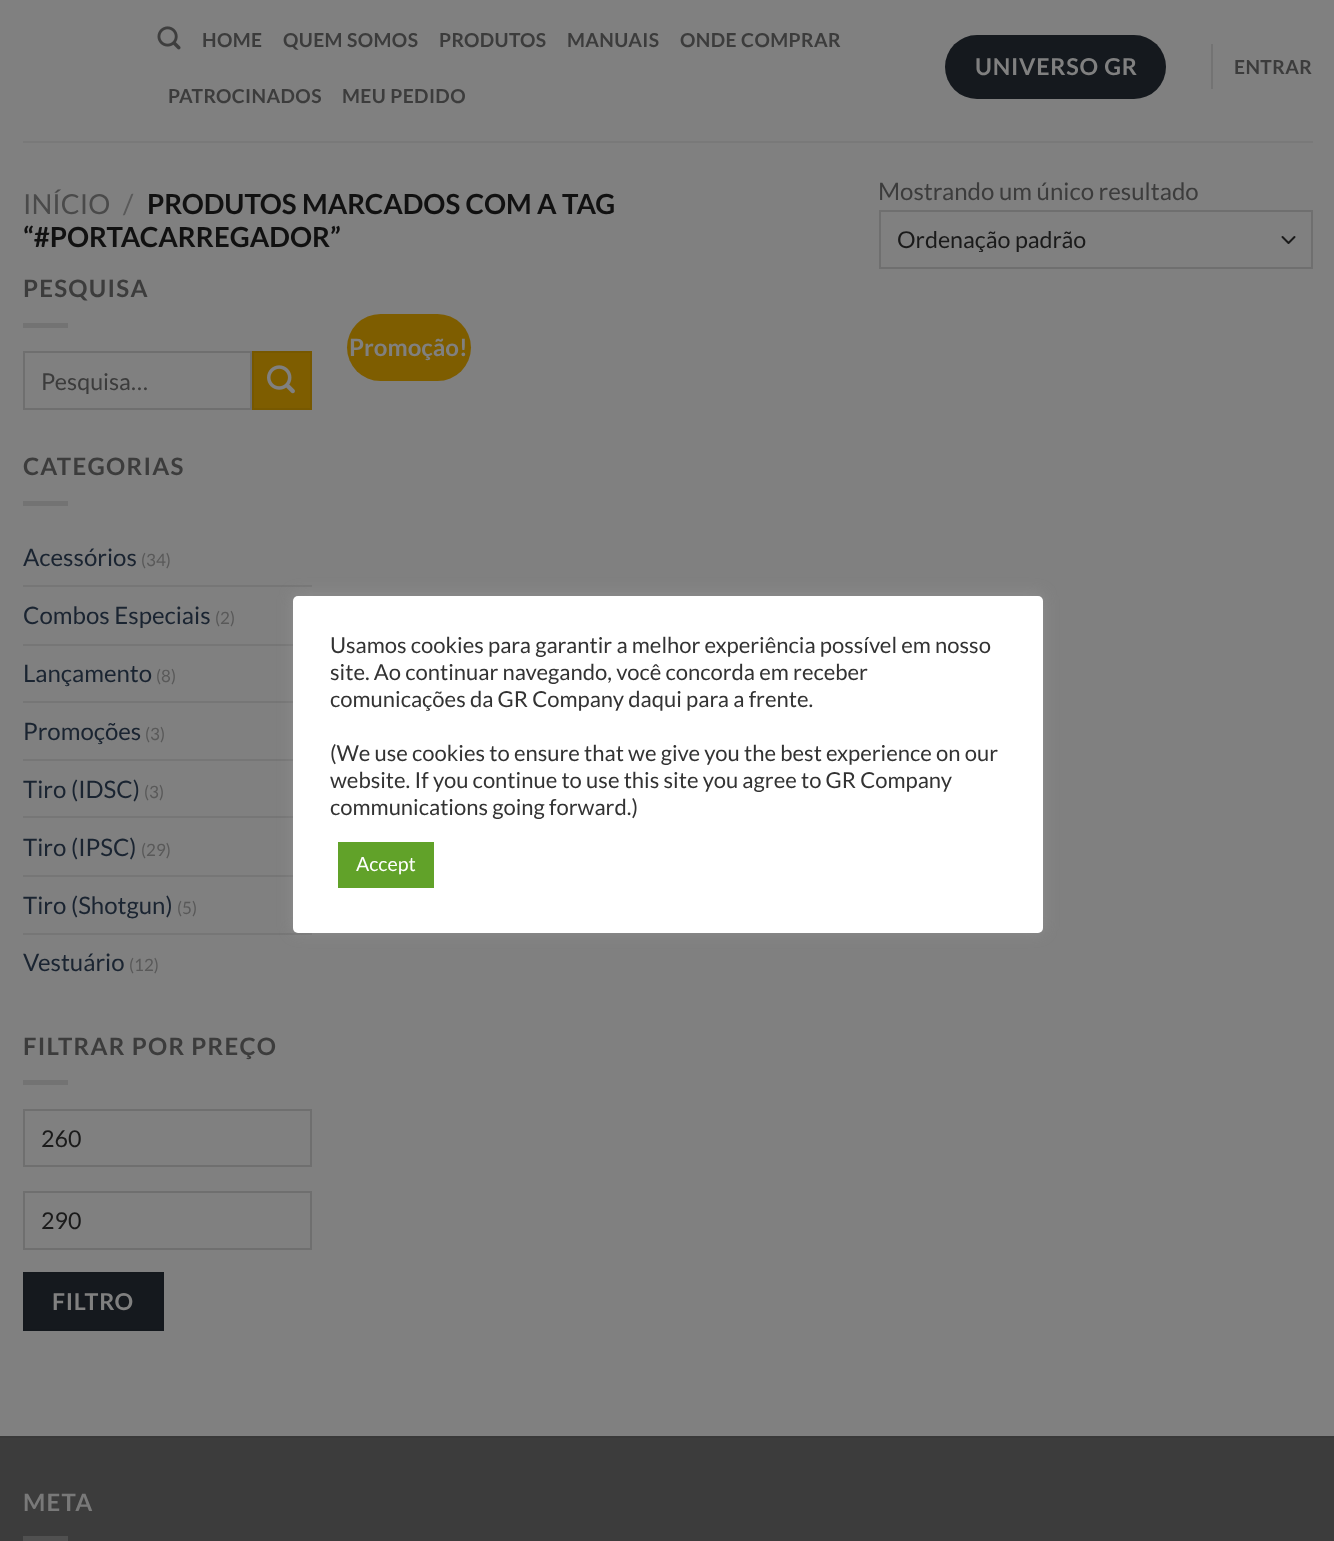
async function draw(canvas) {
  canvas.width = 1334;
  canvas.height = 1541;
  const ctx = canvas.getContext('2d');
  ctx.miterLimit = 4;
  ctx.fontKerning = 'normal';
  function label(s, x, y, font, color) {
    ctx.font = font;
    ctx.fillStyle = color;
    ctx.fillText(s, x, y);
  }
  function rect(x, y, w, h, color) {
    ctx.fillStyle = color;
    ctx.fillRect(x, y, w, h);
  }
  function roundedRect(x, y, w, h, r, color) {
    ctx.fillStyle = color;
    ctx.beginPath();
    ctx.roundRect(x, y, w, h, r);
    ctx.fill();
  }
  async function image(src, x, y, w, h) {
    const img = new Image();
    img.src = src;
    await img.decode();
    ctx.drawImage(img, x, y, w, h);
  }
  let path;

  rect(0, 0, 1334, 1541, '#808080');
  await image('assets/img1.png', 157, 26, 24, 24);
  ctx.letterSpacing = '0.4px';
  label('HOME', 202, 47, 'bold 19.25px Lato', '#3c3c3c');
  label('QUEM SOMOS', 283, 47, 'bold 19.25px Lato', '#3c3c3c');
  label('PRODUTOS', 439, 47, 'bold 19.25px Lato', '#3c3c3c');
  label('MANUAIS', 567, 47, 'bold 19.25px Lato', '#3c3c3c');
  label('ONDE COMPRAR', 680, 47, 'bold 19.25px Lato', '#3c3c3c');
  label('PATROCINADOS', 168, 103, 'bold 19.25px Lato', '#3c3c3c');
  label('MEU PEDIDO', 342, 103, 'bold 19.25px Lato', '#3c3c3c');
  roundedRect(945, 35, 221, 64, 32, '#15191e');
  ctx.letterSpacing = '0.75px';
  label('UNIVERSO GR', 975, 75, 'bold 23.25px Lato', '#808080');
  rect(1211, 44, 2, 45, '#737373');
  ctx.letterSpacing = '0.4px';
  label('ENTRAR', 1234, 74, 'bold 19.25px Lato', '#3c3c3c');
  rect(23, 141, 1290, 2, '#797979');
  ctx.letterSpacing = '0px';
  label('INÍCIO', 23, 214, '27.6px Lato', '#4a4a4a');
  label('/', 123, 214, '27.6px Lato', '#595959');
  label('PRODUTOS MARCADOS COM A TAG', 147, 214, 'bold 27.6px Lato', '#111');
  label('“#PORTACARREGADOR”', 23, 247, 'bold 27.6px Lato', '#111');
  label('Mostrando um único resultado', 878, 200, '24px Lato', '#3c3c3c');
  path = new Path2D('M1282.5 237L1288.5 243L1294.5 237');
  ctx.strokeStyle = '#1a1a1a';
  ctx.lineWidth = 2;
  ctx.lineCap = 'round';
  ctx.lineJoin = 'round';
  ctx.stroke(path);
  ctx.strokeStyle = '#6f6f6f';
  ctx.lineJoin = 'miter';
  ctx.strokeRect(880, 211, 432, 57);
  label('Ordenação padrão', 897, 248, '23.25px Lato', '#1a1a1a');
  ctx.letterSpacing = '1.25px';
  label('PESQUISA', 23, 297, 'bold 24px Lato', '#3c3c3c');
  rect(23, 323, 45, 5, '#737373');
  ctx.strokeRect(24, 352, 227, 57);
  ctx.letterSpacing = '0px';
  label('Pesquisa…', 41, 390, '23.25px Lato', '#3c3c3c');
  ctx.fillStyle = '#7e5d00';
  ctx.beginPath();
  ctx.rect(253, 352, 58, 57);
  ctx.fill();
  ctx.strokeStyle = '#775800';
  ctx.stroke();
  await image('assets/img2.png', 267, 365, 28, 29);
  ctx.letterSpacing = '1.25px';
  label('CATEGORIAS', 23, 475, 'bold 24px Lato', '#3c3c3c');
  rect(23, 501, 45, 5, '#737373');
  ctx.letterSpacing = '0px';
  label('Acessórios', 23, 566, '24px Lato', '#1a2431');
  label('(34)', 141, 566, '17px Lato', '#595959');
  rect(23, 585, 289, 2, '#767676');
  label('Combos Especiais', 23, 624, '24px Lato', '#1a2431');
  label('(2)', 215, 624, '17px Lato', '#595959');
  rect(23, 644, 270, 2, '#767676');
  label('Lançamento', 23, 682, '24px Lato', '#1a2431');
  label('(8)', 156, 682, '17px Lato', '#595959');
  rect(23, 701, 270, 2, '#767676');
  label('Promoções', 23, 740, '24px Lato', '#1a2431');
  label('(3)', 145, 740, '17px Lato', '#595959');
  rect(23, 759, 270, 2, '#767676');
  label('Tiro (IDSC)', 23, 798, '24px Lato', '#1a2431');
  label('(3)', 144, 798, '17px Lato', '#595959');
  rect(23, 816, 270, 2, '#767676');
  label('Tiro (IPSC)', 23, 856, '24px Lato', '#1a2431');
  label('(29)', 141, 856, '17px Lato', '#595959');
  rect(23, 875, 270, 2, '#767676');
  label('Tiro (Shotgun)', 23, 914, '24px Lato', '#1a2431');
  label('(5)', 177, 914, '17px Lato', '#595959');
  rect(23, 933, 289, 2, '#767676');
  label('Vestuário', 23, 971, '24px Lato', '#1a2431');
  label('(12)', 129, 971, '17px Lato', '#595959');
  ctx.letterSpacing = '1.25px';
  label('FILTRAR POR PREÇO', 23, 1055, 'bold 24px Lato', '#3c3c3c');
  rect(23, 1080, 45, 5, '#737373');
  ctx.strokeStyle = '#6f6f6f';
  ctx.strokeRect(24, 1110, 287, 56);
  ctx.letterSpacing = '0px';
  label('260', 41, 1147, '23.25px Lato', '#1a1a1a');
  ctx.strokeRect(24, 1192, 287, 57);
  label('290', 41, 1229, '23.25px Lato', '#1a1a1a');
  ctx.fillStyle = '#15191e';
  ctx.beginPath();
  ctx.rect(24, 1273, 139, 57);
  ctx.fill();
  ctx.strokeStyle = '#14181d';
  ctx.stroke();
  ctx.letterSpacing = '0.75px';
  label('FILTRO', 52, 1310, 'bold 23.25px Lato', '#808080');
  roundedRect(347, 314, 124, 67, 33.5, '#7e5d00');
  ctx.letterSpacing = '0px';
  label('Promoção!', 349, 356, 'bold 24px Lato', '#808080');
  rect(0, 1438, 1334, 103, '#3c3c3c');
  rect(0, 1436, 1334, 2, '#393939');
  ctx.letterSpacing = '1.25px';
  label('META', 23, 1511, 'bold 24px Lato', '#797979');
  rect(23, 1536, 45, 5, '#505050');
  ctx.fillStyle = '#acabab4d';
  ctx.filter = 'blur(7.5px)';
  ctx.beginPath();
  ctx.roundRect(293, 594, 750, 338, 5);
  ctx.fill();
  ctx.filter = 'none';
  roundedRect(293, 596, 750, 337, 5, '#fff');
  ctx.letterSpacing = '0px';
  label('Usamos cookies para garantir a melhor experiência possível em nosso', 330, 653, '22px Lato', '#333');
  label('site. Ao continuar navegando, você concorda em receber', 330, 680, '22px Lato', '#333');
  label('comunicações da GR Company daqui para a frente.', 330, 707, '22px Lato', '#333');
  label('(We use cookies to ensure that we give you the best experience on our', 330, 761, '22px Lato', '#333');
  label('website. If you continue to use this site you agree to GR Company', 330, 788, '22px Lato', '#333');
  label('communications going forward.)', 330, 815, '22px Lato', '#333');
  rect(338, 842, 96, 46, '#61a229');
  label('Accept', 356, 871, '19.5px Lato', '#fff');
}

draw(document.querySelector('canvas'));
